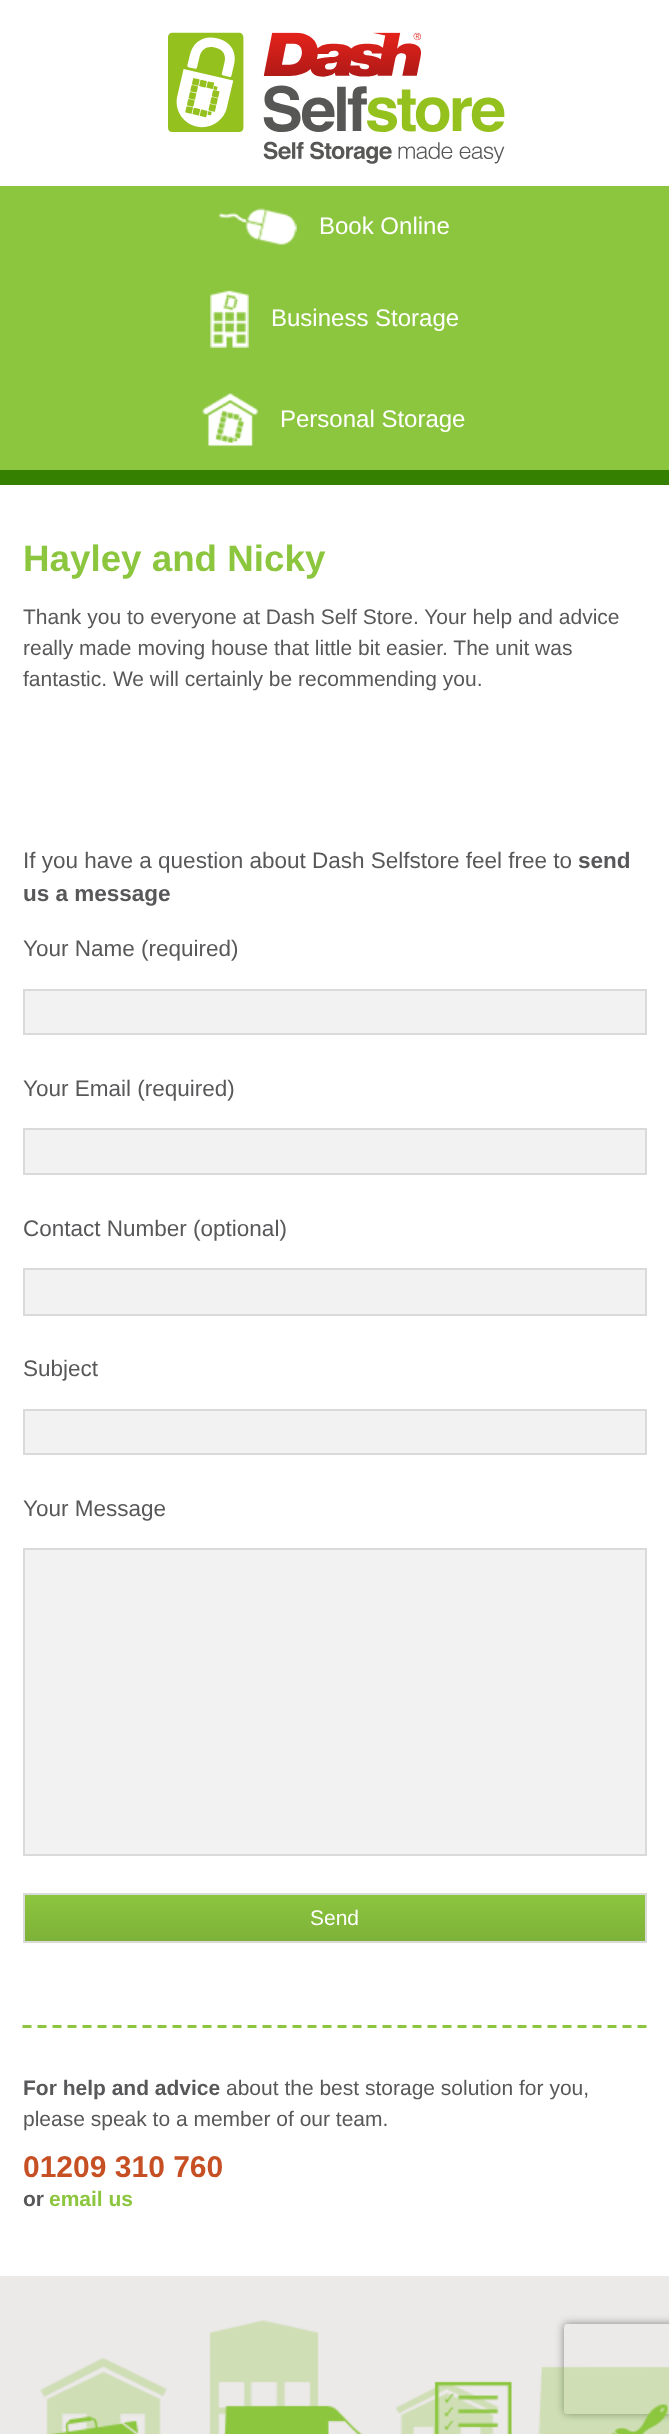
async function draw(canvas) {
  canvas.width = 669;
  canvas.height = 2434;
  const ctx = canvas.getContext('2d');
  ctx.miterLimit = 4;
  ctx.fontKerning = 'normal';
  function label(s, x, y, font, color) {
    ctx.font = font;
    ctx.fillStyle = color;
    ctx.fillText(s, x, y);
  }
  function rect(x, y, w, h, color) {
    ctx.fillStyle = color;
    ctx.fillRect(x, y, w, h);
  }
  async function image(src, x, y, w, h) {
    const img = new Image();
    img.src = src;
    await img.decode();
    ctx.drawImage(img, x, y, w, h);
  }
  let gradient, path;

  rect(0, 0, 669, 2434, '#ece9e9');
  rect(0, 0, 669, 186, '#fff');
  await image('assets/img1.png', 168, 32, 337, 132);
  rect(0, 186, 669, 284, '#8cc63f');
  rect(0, 470, 669, 15, '#358000');
  await image('assets/img2.png', 219, 208, 78, 37);
  label('Book Online', 319, 234, '24px Liberation Sans', '#fff');
  await image('assets/img3.png', 210, 290, 39, 58);
  label('Business Storage', 271, 326, '24px Liberation Sans', '#fff');
  await image('assets/img4.png', 202, 393, 56, 54);
  label('Personal Storage', 280, 427, '24px Liberation Sans', '#fff');
  rect(0, 485, 669, 1791, '#fff');
  label('Hayley and Nicky', 23, 571, 'bold 36.75px Liberation Sans', '#8cc63f');
  label('Thank you to everyone at Dash Self Store. Your help and advice', 23, 624, '21px Liberation Sans', '#58585a');
  label('really made moving house that little bit easier. The unit was', 23, 655, '21px Liberation Sans', '#58585a');
  label('fantastic. We will certainly be recommending you.', 23, 686, '21px Liberation Sans', '#58585a');
  label('If you have a question about Dash Selfstore feel free to', 23, 868, '22.5px Liberation Sans', '#58585a');
  label('send', 578, 868, 'bold 22.5px Liberation Sans', '#58585a');
  label('us a message', 23, 901, 'bold 22.5px Liberation Sans', '#58585a');
  path = new Path2D('M22.5 2026.5H646.5');
  ctx.strokeStyle = '#8cc63f';
  ctx.lineWidth = 3;
  ctx.setLineDash([9, 6]);
  ctx.stroke(path);
  label('Your Name (required)', 23, 956, '22.5px Liberation Sans', '#58585a');
  ctx.fillStyle = '#f2f2f2';
  ctx.beginPath();
  ctx.rect(24, 990, 622, 44);
  ctx.fill();
  ctx.strokeStyle = '#dadada';
  ctx.lineWidth = 2;
  ctx.setLineDash([]);
  ctx.stroke();
  label('Your Email (required)', 23, 1096, '22.5px Liberation Sans', '#58585a');
  ctx.fillStyle = '#f2f2f2';
  ctx.beginPath();
  ctx.rect(24, 1129, 622, 45);
  ctx.fill();
  ctx.stroke();
  label('Contact Number (optional)', 23, 1236, '22.5px Liberation Sans', '#58585a');
  ctx.fillStyle = '#f2f2f2';
  ctx.beginPath();
  ctx.rect(24, 1269, 622, 46);
  ctx.fill();
  ctx.stroke();
  label('Subject', 23, 1376, '22.5px Liberation Sans', '#58585a');
  ctx.fillStyle = '#f2f2f2';
  ctx.beginPath();
  ctx.rect(24, 1410, 622, 44);
  ctx.fill();
  ctx.stroke();
  label('Your Message', 23, 1516, '22.5px Liberation Sans', '#58585a');
  ctx.fillStyle = '#f2f2f2';
  ctx.beginPath();
  ctx.rect(24, 1549, 622, 306);
  ctx.fill();
  ctx.stroke();
  gradient = ctx.createLinearGradient(335, 1895, 335, 1941);
  gradient.addColorStop(0, '#8cc63f');
  gradient.addColorStop(1, '#7db138');
  ctx.fillStyle = gradient;
  ctx.fillRect(25, 1895, 620, 46);
  ctx.strokeRect(24, 1894, 622, 48);
  label('Send', 310, 1925, '21px Liberation Sans', '#fff');
  label('For help and advice', 23, 2095, 'bold 21px Liberation Sans', '#58585a');
  label('about the best storage solution for you,', 226, 2095, '21px Liberation Sans', '#58585a');
  label('please speak to a member of our team.', 23, 2126, '21px Liberation Sans', '#58585a');
  label('01209 310 760', 23, 2177, 'bold 30px Liberation Sans', '#c64f24');
  label('or', 23, 2206, 'bold 21px Liberation Sans', '#58585a');
  label('email us', 49, 2206, 'bold 21px Liberation Sans', '#8cc63f');
  ctx.save();
  path = new Path2D('M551 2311H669V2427H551ZM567 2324H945C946.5 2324 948 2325.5 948 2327V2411C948 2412.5 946.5 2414 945 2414H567C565.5 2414 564 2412.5 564 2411V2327C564 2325.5 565.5 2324 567 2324Z');
  ctx.clip(path, 'evenodd');
  ctx.fillStyle = '#808080';
  ctx.filter = 'blur(4px)';
  ctx.beginPath();
  ctx.roundRect(564, 2324, 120, 90, 3);
  ctx.fill();
  ctx.filter = 'none';
  ctx.restore();
  await image('assets/img5.png', 40, 2320, 629, 114);
}

draw(document.querySelector('canvas'));
